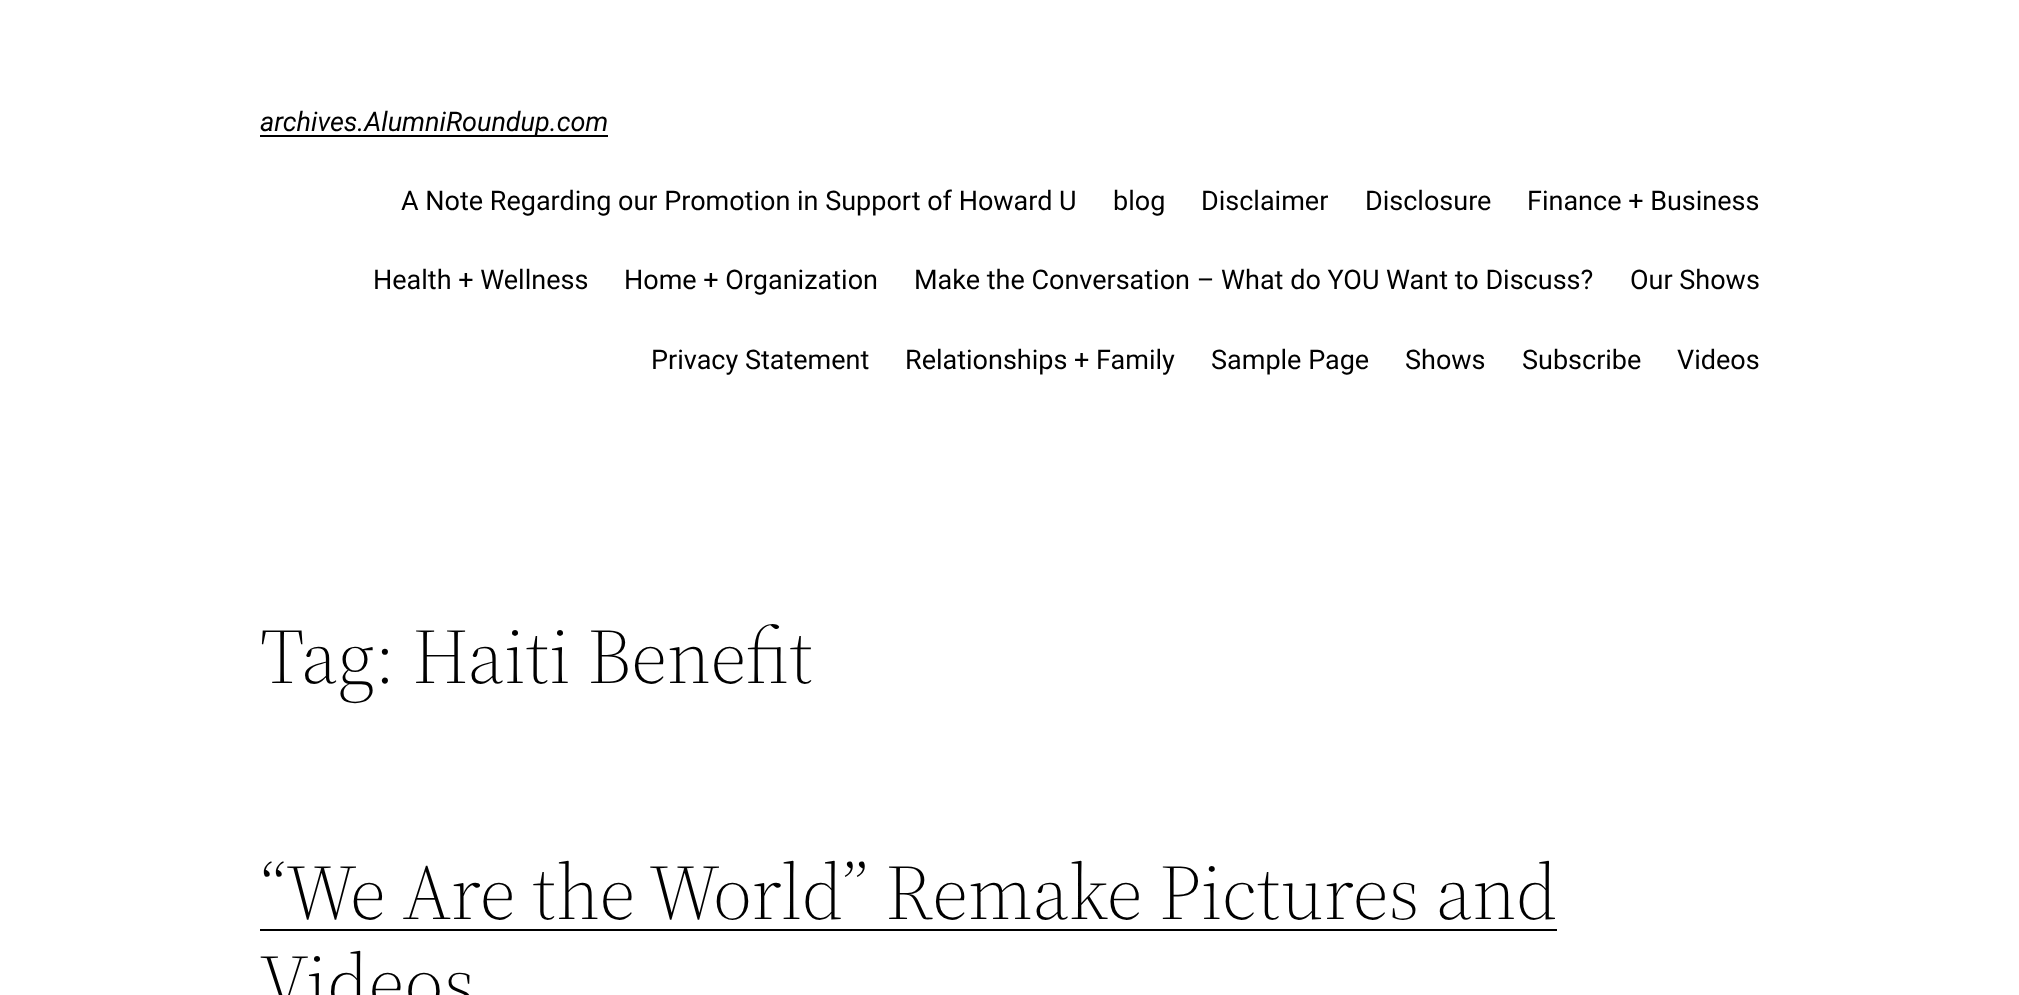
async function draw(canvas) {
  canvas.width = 2019;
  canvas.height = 995;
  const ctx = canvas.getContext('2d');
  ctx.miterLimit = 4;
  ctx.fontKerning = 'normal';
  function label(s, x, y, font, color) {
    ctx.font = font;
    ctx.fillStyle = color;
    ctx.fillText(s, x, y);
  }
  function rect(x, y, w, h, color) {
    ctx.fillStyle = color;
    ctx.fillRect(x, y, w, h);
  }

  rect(0, 0, 2019, 995, '#fff');
  rect(260, 135, 348, 2, '#000');
  label('archives.AlumniRoundup.com', 260, 131, 'italic 27px Roboto', '#000');
  label('A Note Regarding our Promotion in Support of Howard U', 401, 210, '27px Roboto', '#000');
  label('blog', 1113, 210, '27px Roboto', '#000');
  label('Disclaimer', 1201, 210, '27px Roboto', '#000');
  label('Disclosure', 1365, 210, '27px Roboto', '#000');
  label('Finance + Business', 1527, 210, '27px Roboto', '#000');
  label('Health + Wellness', 373, 289, '27px Roboto', '#000');
  label('Home + Organization', 624, 289, '27px Roboto', '#000');
  label('Make the Conversation – What do YOU Want to Discuss?', 914, 289, '27px Roboto', '#000');
  label('Our Shows', 1630, 289, '27px Roboto', '#000');
  label('Privacy Statement', 651, 369, '27px Roboto', '#000');
  label('Relationships + Family', 905, 369, '27px Roboto', '#000');
  label('Sample Page', 1211, 369, '27px Roboto', '#000');
  label('Shows', 1405, 369, '27px Roboto', '#000');
  label('Subscribe', 1522, 369, '27px Roboto', '#000');
  label('Videos', 1677, 369, '27px Roboto', '#000');
  label('Tag: Haiti Benefit', 260, 683, '300 78px "Source Serif 4"', '#000');
  label('“We Are the World” Remake Pictures and', 260, 919, '300 78px "Source Serif 4"', '#000');
  rect(260, 929, 1297, 2, '#000');
  label('Videos', 260, 1009, '300 78px "Source Serif 4"', '#000');
}

draw(document.querySelector('canvas'));
